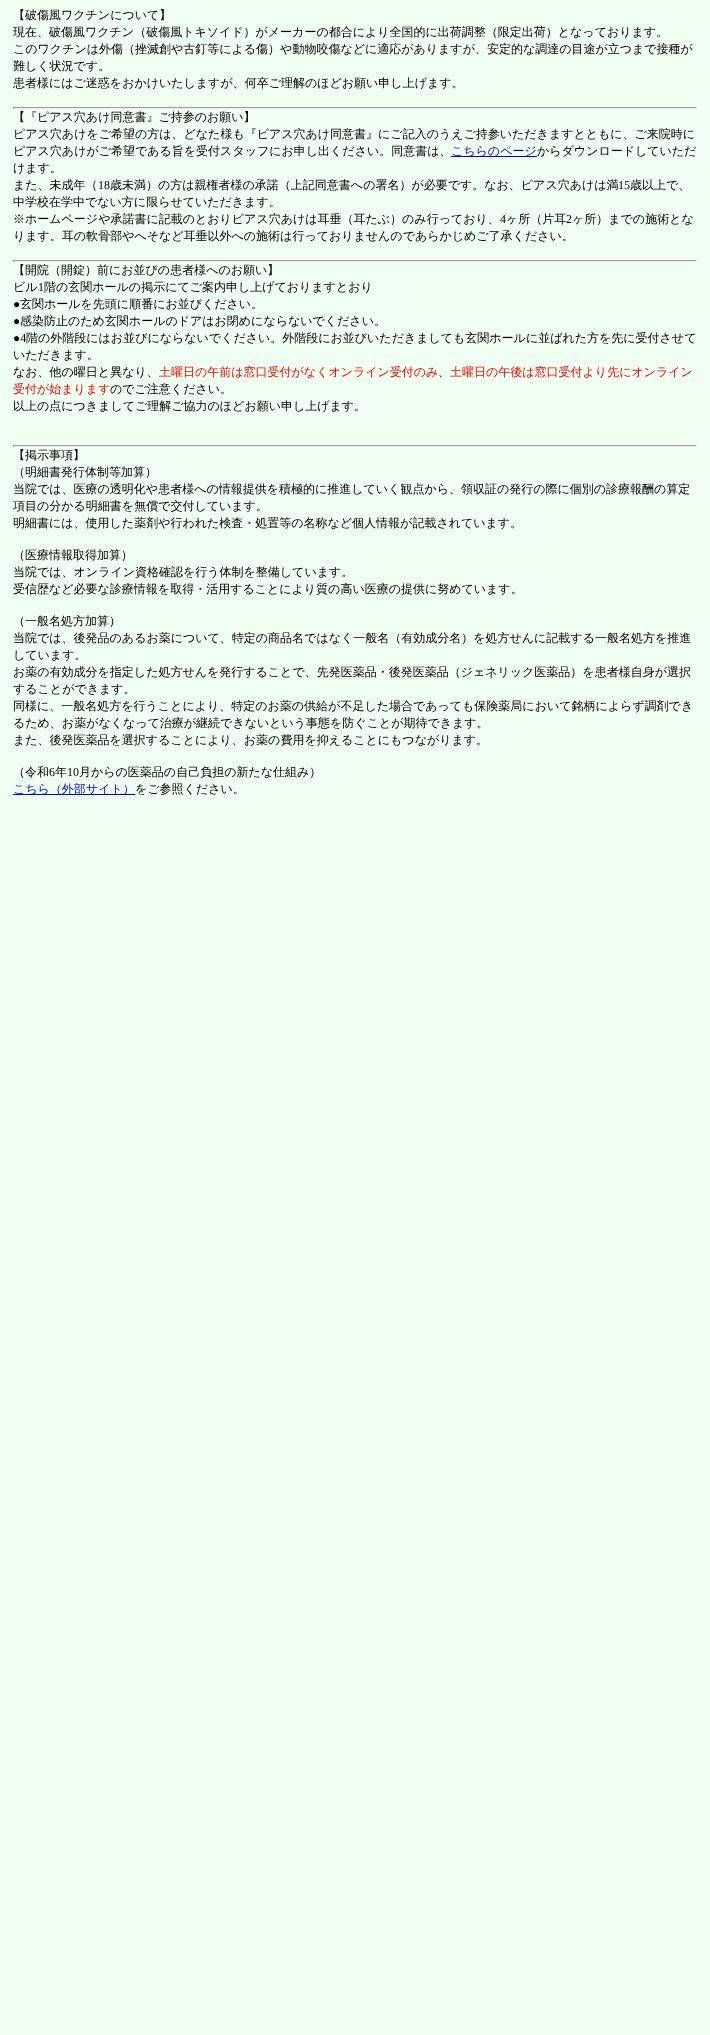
async function draw(canvas) {
  canvas.width = 710;
  canvas.height = 2035;
  const ctx = canvas.getContext('2d');
  ctx.miterLimit = 4;
  ctx.fontKerning = 'normal';
  function label(s, x, y, font, color) {
    ctx.font = font;
    ctx.fillStyle = color;
    ctx.fillText(s, x, y);
  }
  function rect(x, y, w, h, color) {
    ctx.fillStyle = color;
    ctx.fillRect(x, y, w, h);
  }

  rect(0, 0, 710, 2035, '#effff2');
  label('【破傷風ワクチンについて】', 13, 19, '500 12px WenQuanYi Zen Hei', '#000');
  label('現在、破傷風ワクチン（破傷風トキソイド）がメーカーの都合により全国的に出荷調整（限定出荷）となっております。', 13, 36, '500 12px WenQuanYi Zen Hei', '#000');
  label('このワクチンは外傷（挫滅創や古釘等による傷）や動物咬傷などに適応がありますが、安定的な調達の目途が立つまで接種が', 13, 53, '500 12px WenQuanYi Zen Hei', '#000');
  label('難しく状況です。', 13, 70, '500 12px WenQuanYi Zen Hei', '#000');
  label('患者様にはご迷惑をおかけいたしますが、何卒ご理解のほどお願い申し上げます。', 13, 87, '500 12px WenQuanYi Zen Hei', '#000');
  rect(13, 107, 684, 1, '#9f9f9f');
  rect(696, 107, 1, 2, '#eee');
  rect(13, 108, 684, 1, '#eee');
  rect(13, 107, 1, 2, '#9f9f9f');
  label('【『ピアス穴あけ同意書』ご持参のお願い】', 13, 121, '500 12px WenQuanYi Zen Hei', '#000');
  label('ピアス穴あけをご希望の方は、どなた様も『ピアス穴あけ同意書』にご記入のうえご持参いただきますとともに、ご来院時に', 13, 138, '500 12px WenQuanYi Zen Hei', '#000');
  label('ピアス穴あけがご希望である旨を受付スタッフにお申し出ください。同意書は、', 13, 155, '500 12px WenQuanYi Zen Hei', '#000');
  rect(451, 156, 86, 1, '#00e');
  label('こちらのページ', 451, 155, '500 12px WenQuanYi Zen Hei', '#00e');
  label('からダウンロードしていただ', 537, 155, '500 12px WenQuanYi Zen Hei', '#000');
  label('けます。', 13, 172, '500 12px WenQuanYi Zen Hei', '#000');
  label('また、未成年（', 13, 189, '500 12px WenQuanYi Zen Hei', '#000');
  label('18', 98, 189, '12px Liberation Serif', '#000');
  label('歳未満）の方は親権者様の承諾（上記同意書への署名）が必要です。なお、ピアス穴あけは満', 110, 189, '500 12px WenQuanYi Zen Hei', '#000');
  label('15', 618, 189, '12px Liberation Serif', '#000');
  label('歳以上で、', 630, 189, '500 12px WenQuanYi Zen Hei', '#000');
  label('中学校在学中でない方に限らせていただきます。', 13, 206, '500 12px WenQuanYi Zen Hei', '#000');
  label('※ホームページや承諾書に記載のとおりピアス穴あけは耳垂（耳たぶ）のみ行っており、', 13, 223, '500 12px WenQuanYi Zen Hei', '#000');
  label('4', 500, 223, '12px Liberation Serif', '#000');
  label('ヶ所（片耳', 506, 223, '500 12px WenQuanYi Zen Hei', '#000');
  label('2', 566, 223, '12px Liberation Serif', '#000');
  label('ヶ所）までの施術とな', 572, 223, '500 12px WenQuanYi Zen Hei', '#000');
  label('ります。耳の軟骨部やへそなど耳垂以外への施術は行っておりませんのであらかじめご了承ください。', 13, 240, '500 12px WenQuanYi Zen Hei', '#000');
  rect(13, 260, 684, 1, '#9f9f9f');
  rect(696, 260, 1, 2, '#eee');
  rect(13, 261, 684, 1, '#eee');
  rect(13, 260, 1, 2, '#9f9f9f');
  label('【開院（開錠）前にお並びの患者様へのお願い】', 13, 274, '500 12px WenQuanYi Zen Hei', '#000');
  label('ビル', 13, 291, '500 12px WenQuanYi Zen Hei', '#000');
  label('1', 38, 291, '12px Liberation Serif', '#000');
  label('階の玄関ホールの掲示にてご案内申し上げておりますとおり', 44, 291, '500 12px WenQuanYi Zen Hei', '#000');
  label('●', 13, 308, '12px Liberation Serif', '#000');
  label('玄関ホールを先頭に順番にお並びください。', 20, 308, '500 12px WenQuanYi Zen Hei', '#000');
  label('●', 13, 325, '12px Liberation Serif', '#000');
  label('感染防止のため玄関ホールのドアはお閉めにならないでください。', 20, 325, '500 12px WenQuanYi Zen Hei', '#000');
  label('●4', 13, 342, '12px Liberation Serif', '#000');
  label('階の外階段にはお並びにならないでください。外階段にお並びいただきましても玄関ホールに並ばれた方を先に受付させて', 26, 342, '500 12px WenQuanYi Zen Hei', '#000');
  label('いただきます。', 13, 359, '500 12px WenQuanYi Zen Hei', '#000');
  label('なお、他の曜日と異なり、', 13, 376, '500 12px WenQuanYi Zen Hei', '#000');
  label('土曜日の午前は窓口受付がなくオンライン受付のみ', 159, 376, '500 12px WenQuanYi Zen Hei', '#f00');
  label('、', 438, 376, '500 12px WenQuanYi Zen Hei', '#000');
  label('土曜日の午後は窓口受付より先にオンライン', 450, 376, '500 12px WenQuanYi Zen Hei', '#f00');
  label('受付が始まります', 13, 393, '500 12px WenQuanYi Zen Hei', '#f00');
  label('のでご注意ください。', 110, 393, '500 12px WenQuanYi Zen Hei', '#000');
  label('以上の点につきましてご理解ご協力のほどお願い申し上げます。', 13, 410, '500 12px WenQuanYi Zen Hei', '#000');
  rect(13, 445, 684, 1, '#9f9f9f');
  rect(696, 445, 1, 2, '#eee');
  rect(13, 446, 684, 1, '#eee');
  rect(13, 445, 1, 2, '#9f9f9f');
  label('【掲示事項】', 13, 459, '500 12px WenQuanYi Zen Hei', '#000');
  label('（明細書発行体制等加算）', 13, 476, '500 12px WenQuanYi Zen Hei', '#000');
  label('当院では、医療の透明化や患者様への情報提供を積極的に推進していく観点から、領収証の発行の際に個別の診療報酬の算定', 13, 493, '500 12px WenQuanYi Zen Hei', '#000');
  label('項目の分かる明細書を無償で交付しています。', 13, 510, '500 12px WenQuanYi Zen Hei', '#000');
  label('明細書には、使用した薬剤や行われた検査・処置等の名称など個人情報が記載されています。', 13, 527, '500 12px WenQuanYi Zen Hei', '#000');
  label('（医療情報取得加算）', 13, 559, '500 12px WenQuanYi Zen Hei', '#000');
  label('当院では、オンライン資格確認を行う体制を整備しています。', 13, 576, '500 12px WenQuanYi Zen Hei', '#000');
  label('受信歴など必要な診療情報を取得・活用することにより質の高い医療の提供に努めています。', 13, 593, '500 12px WenQuanYi Zen Hei', '#000');
  label('（一般名処方加算）', 13, 625, '500 12px WenQuanYi Zen Hei', '#000');
  label('当院では、後発品のあるお薬について、特定の商品名ではなく一般名（有効成分名）を処方せんに記載する一般名処方を推進', 13, 642, '500 12px WenQuanYi Zen Hei', '#000');
  label('しています。', 13, 659, '500 12px WenQuanYi Zen Hei', '#000');
  label('お薬の有効成分を指定した処方せんを発行することで、先発医薬品・後発医薬品（ジェネリック医薬品）を患者様自身が選択', 13, 676, '500 12px WenQuanYi Zen Hei', '#000');
  label('することができます。', 13, 693, '500 12px WenQuanYi Zen Hei', '#000');
  label('同様に、一般名処方を行うことにより、特定のお薬の供給が不足した場合であっても保険薬局において銘柄によらず調剤でき', 13, 710, '500 12px WenQuanYi Zen Hei', '#000');
  label('るため、お薬がなくなって治療が継続できないという事態を防ぐことが期待できます。', 13, 727, '500 12px WenQuanYi Zen Hei', '#000');
  label('また、後発医薬品を選択することにより、お薬の費用を抑えることにもつながります。', 13, 744, '500 12px WenQuanYi Zen Hei', '#000');
  label('（令和', 13, 776, '500 12px WenQuanYi Zen Hei', '#000');
  label('6', 49, 776, '12px Liberation Serif', '#000');
  label('年', 55, 776, '500 12px WenQuanYi Zen Hei', '#000');
  label('10', 67, 776, '12px Liberation Serif', '#000');
  label('月からの医薬品の自己負担の新たな仕組み）', 79, 776, '500 12px WenQuanYi Zen Hei', '#000');
  rect(13, 794, 122, 1, '#00e');
  label('こちら（外部サイト）', 13, 793, '500 12px WenQuanYi Zen Hei', '#00e');
  label('をご参照ください。', 135, 793, '500 12px WenQuanYi Zen Hei', '#000');
}

draw(document.querySelector('canvas'));
